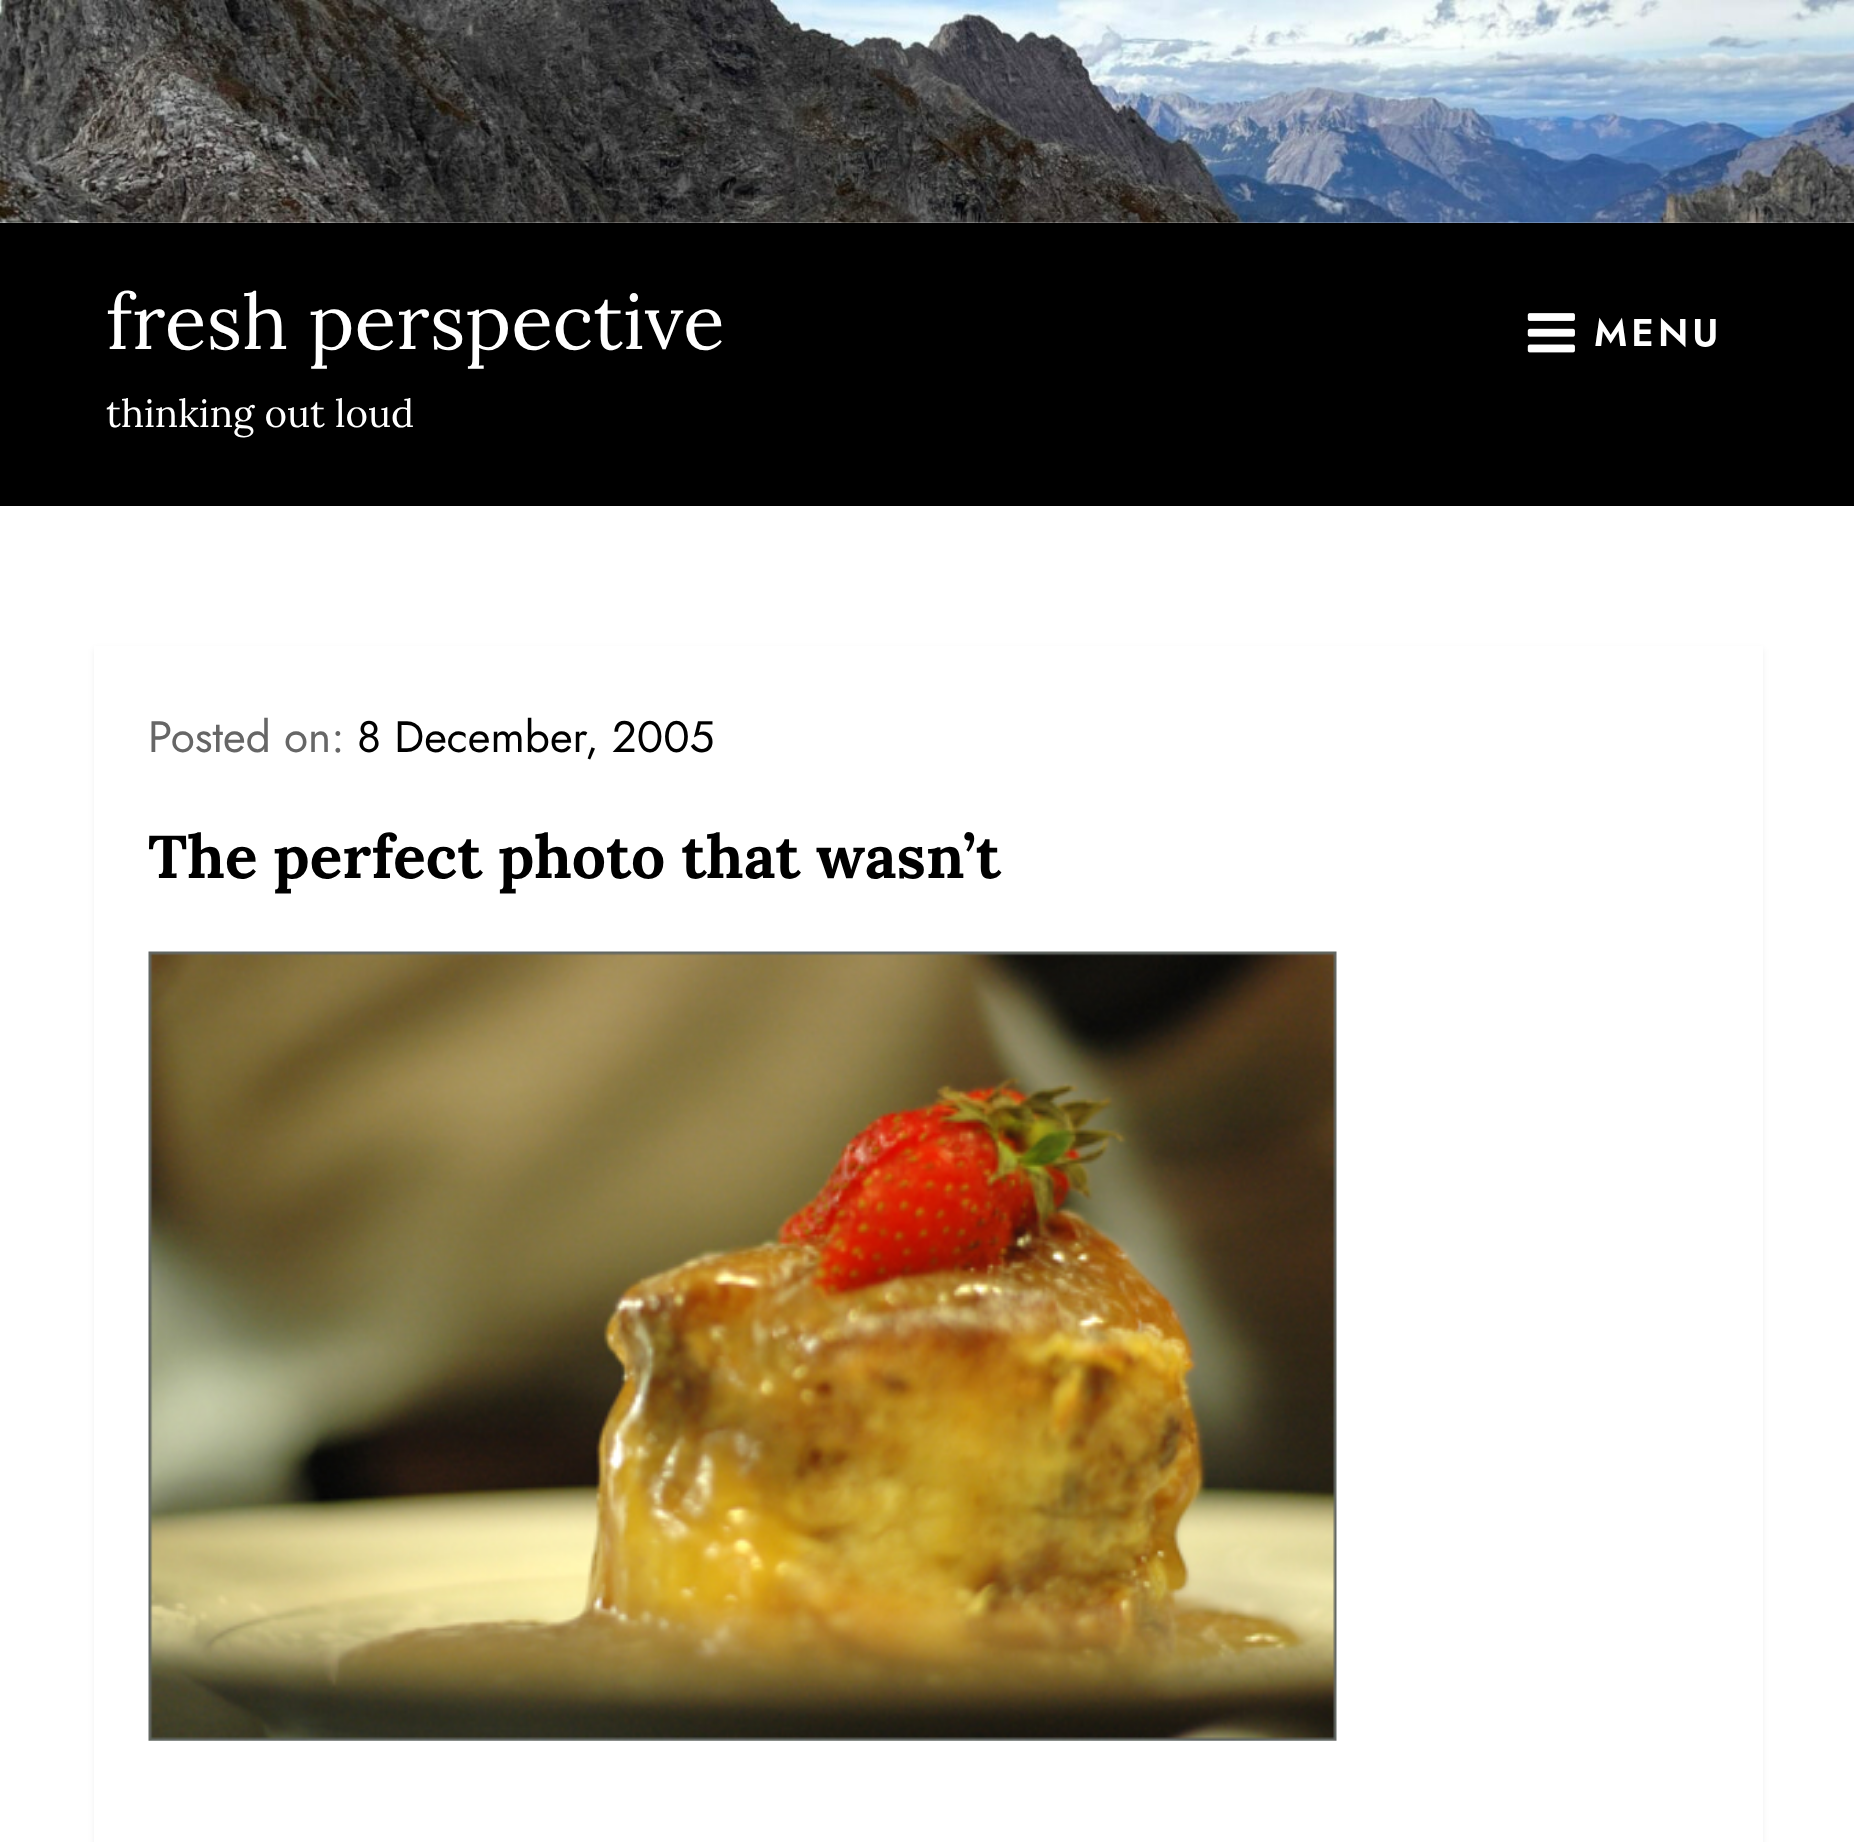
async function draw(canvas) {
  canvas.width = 1854;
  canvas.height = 1842;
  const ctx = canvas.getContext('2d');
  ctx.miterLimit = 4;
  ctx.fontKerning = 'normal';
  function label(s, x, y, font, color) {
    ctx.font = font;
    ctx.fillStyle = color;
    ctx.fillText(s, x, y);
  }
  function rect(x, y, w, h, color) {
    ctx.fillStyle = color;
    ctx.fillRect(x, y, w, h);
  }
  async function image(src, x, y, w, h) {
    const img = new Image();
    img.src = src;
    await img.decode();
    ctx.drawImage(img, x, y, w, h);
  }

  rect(0, 0, 1854, 1842, '#fff');
  await image('assets/img1.png', 0, 0, 1854, 223);
  rect(0, 223, 1854, 283, '#000');
  label('fresh perspective', 106, 349, '77px Lora', '#fff');
  label('thinking out loud', 106, 427, '38.5px Lora', '#fff');
  await image('assets/img2.png', 1527, 313, 48, 40);
  ctx.letterSpacing = '4px';
  label('MENU', 1594, 346, '600 38.5px Jost', '#fff');
  ctx.fillStyle = '#0000000f';
  ctx.filter = 'blur(3px)';
  ctx.beginPath();
  ctx.rect(94, 649, 1669, 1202);
  ctx.fill();
  ctx.filter = 'none';
  rect(94, 646, 1669, 1196, '#fff');
  ctx.letterSpacing = '0px';
  label('Posted on:', 148, 752, '44px Jost', '#666');
  label('8 December, 2005', 357, 752, '44px Jost', '#000');
  label('The perfect photo that wasn’t', 148, 878, 'bold 60.5px Lora', '#000');
  await image('assets/img3.png', 148, 951, 1189, 790);
}

draw(document.querySelector('canvas'));
